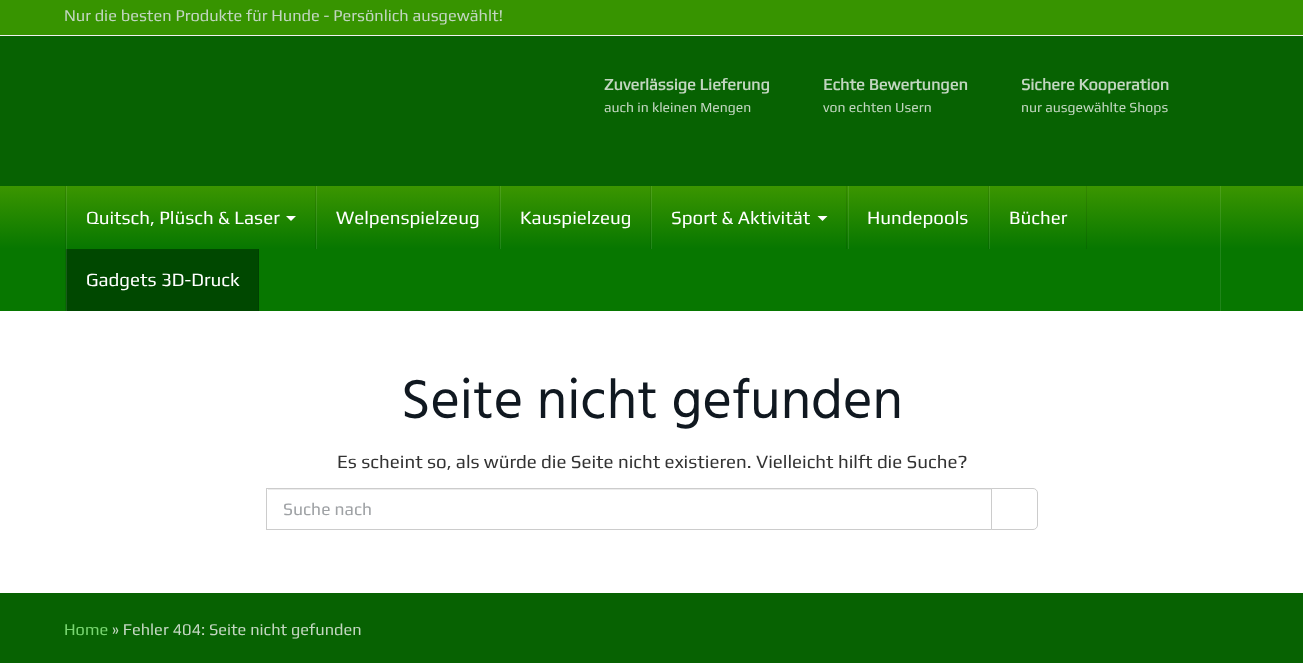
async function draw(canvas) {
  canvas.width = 1303;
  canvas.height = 663;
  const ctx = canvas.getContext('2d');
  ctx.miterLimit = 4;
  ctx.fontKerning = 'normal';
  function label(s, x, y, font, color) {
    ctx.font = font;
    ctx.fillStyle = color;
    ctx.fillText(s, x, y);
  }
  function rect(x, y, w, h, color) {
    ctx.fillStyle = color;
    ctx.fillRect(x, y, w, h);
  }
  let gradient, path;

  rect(0, 0, 1303, 663, '#fff');
  rect(0, 0, 1303, 35, '#379400');
  rect(0, 35, 1303, 1, '#f0f0f0');
  label('Nur die besten Produkte für Hunde - Persönlich ausgewählt!', 64, 21, '16.4px Play', '#c2d6c0');
  rect(0, 36, 1303, 150, '#076202');
  label('Zuverlässige Lieferung', 604, 90, 'bold 16.4px Play', '#c2d6c0');
  label('auch in kleinen Mengen', 604, 112, '14px Play', '#c2d6c0');
  label('Echte Bewertungen', 823, 90, 'bold 16.4px Play', '#c2d6c0');
  label('von echten Usern', 823, 112, '14px Play', '#c2d6c0');
  label('Sichere Kooperation', 1021, 90, 'bold 16.4px Play', '#c2d6c0');
  label('nur ausgewählte Shops', 1021, 112, '14px Play', '#c2d6c0');
  gradient = ctx.createLinearGradient(652, 186, 652, 311);
  gradient.addColorStop(0, '#3b9600');
  gradient.addColorStop(0.5, '#077700');
  ctx.fillStyle = gradient;
  ctx.fillRect(0, 186, 1303, 125);
  gradient = ctx.createLinearGradient(652, 186, 652, 311);
  gradient.addColorStop(0, '#4fa11a');
  gradient.addColorStop(0.5, '#20851a');
  ctx.fillStyle = gradient;
  ctx.fillRect(989, 186, 1, 63);
  gradient = ctx.createLinearGradient(652, 186, 652, 311);
  gradient.addColorStop(0, '#358700');
  gradient.addColorStop(0.5, '#066b00');
  ctx.fillStyle = gradient;
  ctx.fillRect(1086, 186, 1, 63);
  gradient = ctx.createLinearGradient(652, 186, 652, 311);
  gradient.addColorStop(0, '#4fa11a');
  gradient.addColorStop(0.5, '#20851a');
  ctx.fillStyle = gradient;
  ctx.fillRect(848, 186, 1, 63);
  gradient = ctx.createLinearGradient(652, 186, 652, 311);
  gradient.addColorStop(0, '#358700');
  gradient.addColorStop(0.5, '#066b00');
  ctx.fillStyle = gradient;
  ctx.fillRect(988, 186, 1, 63);
  gradient = ctx.createLinearGradient(652, 186, 652, 311);
  gradient.addColorStop(0, '#4fa11a');
  gradient.addColorStop(0.5, '#20851a');
  ctx.fillStyle = gradient;
  ctx.fillRect(651, 186, 1, 63);
  gradient = ctx.createLinearGradient(652, 186, 652, 311);
  gradient.addColorStop(0, '#358700');
  gradient.addColorStop(0.5, '#066b00');
  ctx.fillStyle = gradient;
  ctx.fillRect(846, 186, 1, 63);
  gradient = ctx.createLinearGradient(652, 186, 652, 311);
  gradient.addColorStop(0, '#4fa11a');
  gradient.addColorStop(0.5, '#20851a');
  ctx.fillStyle = gradient;
  ctx.fillRect(500, 186, 1, 63);
  gradient = ctx.createLinearGradient(652, 186, 652, 311);
  gradient.addColorStop(0, '#358700');
  gradient.addColorStop(0.5, '#066b00');
  ctx.fillStyle = gradient;
  ctx.fillRect(650, 186, 1, 63);
  gradient = ctx.createLinearGradient(652, 186, 652, 311);
  gradient.addColorStop(0, '#4fa11a');
  gradient.addColorStop(0.5, '#20851a');
  ctx.fillStyle = gradient;
  ctx.fillRect(316, 186, 1, 63);
  gradient = ctx.createLinearGradient(652, 186, 652, 311);
  gradient.addColorStop(0, '#358700');
  gradient.addColorStop(0.5, '#066b00');
  ctx.fillStyle = gradient;
  ctx.fillRect(499, 186, 1, 63);
  gradient = ctx.createLinearGradient(652, 186, 652, 311);
  gradient.addColorStop(0, '#4fa11a');
  gradient.addColorStop(0.5, '#20851a');
  ctx.fillStyle = gradient;
  ctx.fillRect(66, 186, 1, 63);
  gradient = ctx.createLinearGradient(652, 186, 652, 311);
  gradient.addColorStop(0, '#358700');
  gradient.addColorStop(0.5, '#066b00');
  ctx.fillStyle = gradient;
  ctx.fillRect(315, 186, 1, 63);
  ctx.fillRect(65, 186, 1, 125);
  gradient = ctx.createLinearGradient(652, 186, 652, 311);
  gradient.addColorStop(0, '#4fa11a');
  gradient.addColorStop(0.5, '#20851a');
  ctx.fillStyle = gradient;
  ctx.fillRect(1220, 186, 1, 125);
  label('Quitsch, Plüsch & Laser', 86, 224, '18.75px Play', '#fff');
  path = new Path2D('M286 216H296L291 221Z');
  ctx.fill(path);
  label('Welpenspielzeug', 336, 224, '18.75px Play', '#fff');
  label('Kauspielzeug', 520, 224, '18.75px Play', '#fff');
  label('Sport & Aktivität', 671, 224, '18.75px Play', '#fff');
  path = new Path2D('M817.5 216H827.5L822.5 221Z');
  ctx.fill(path);
  label('Hundepools', 867, 224, '18.75px Play', '#fff');
  label('Bücher', 1009, 224, '18.75px Play', '#fff');
  rect(67, 249, 191, 62, '#004800');
  rect(258, 249, 1, 62, '#004100');
  rect(66, 249, 1, 62, '#1a5a1a');
  label('Gadgets 3D-Druck', 86, 286, '18.75px Play', '#fff');
  label('Seite nicht gefunden', 401, 418, '56.25px Hind', '#101820');
  label('Es scheint so, als würde die Seite nicht existieren. Vielleicht hilft die Suche?', 337, 468, '18.75px Play', '#333');
  rect(268, 489, 723, 1, '#ececec');
  ctx.strokeStyle = '#ccc';
  ctx.strokeRect(266.5, 488.5, 726, 41);
  label('Suche nach', 283, 515, '17.5px Play', '#9fa2a5');
  ctx.fillStyle = '#fff';
  ctx.beginPath();
  ctx.roundRect(991.5, 488.5, 46, 41, [0, 4.5, 4.5, 0]);
  ctx.fill();
  ctx.stroke();
  rect(0, 593, 1303, 70, '#076202');
  label('Home', 64, 635, '16.4px Play', '#79d671');
  label('» Fehler 404: Seite nicht gefunden', 112, 635, '16.4px Play', '#c2d6c0');
}

draw(document.querySelector('canvas'));
